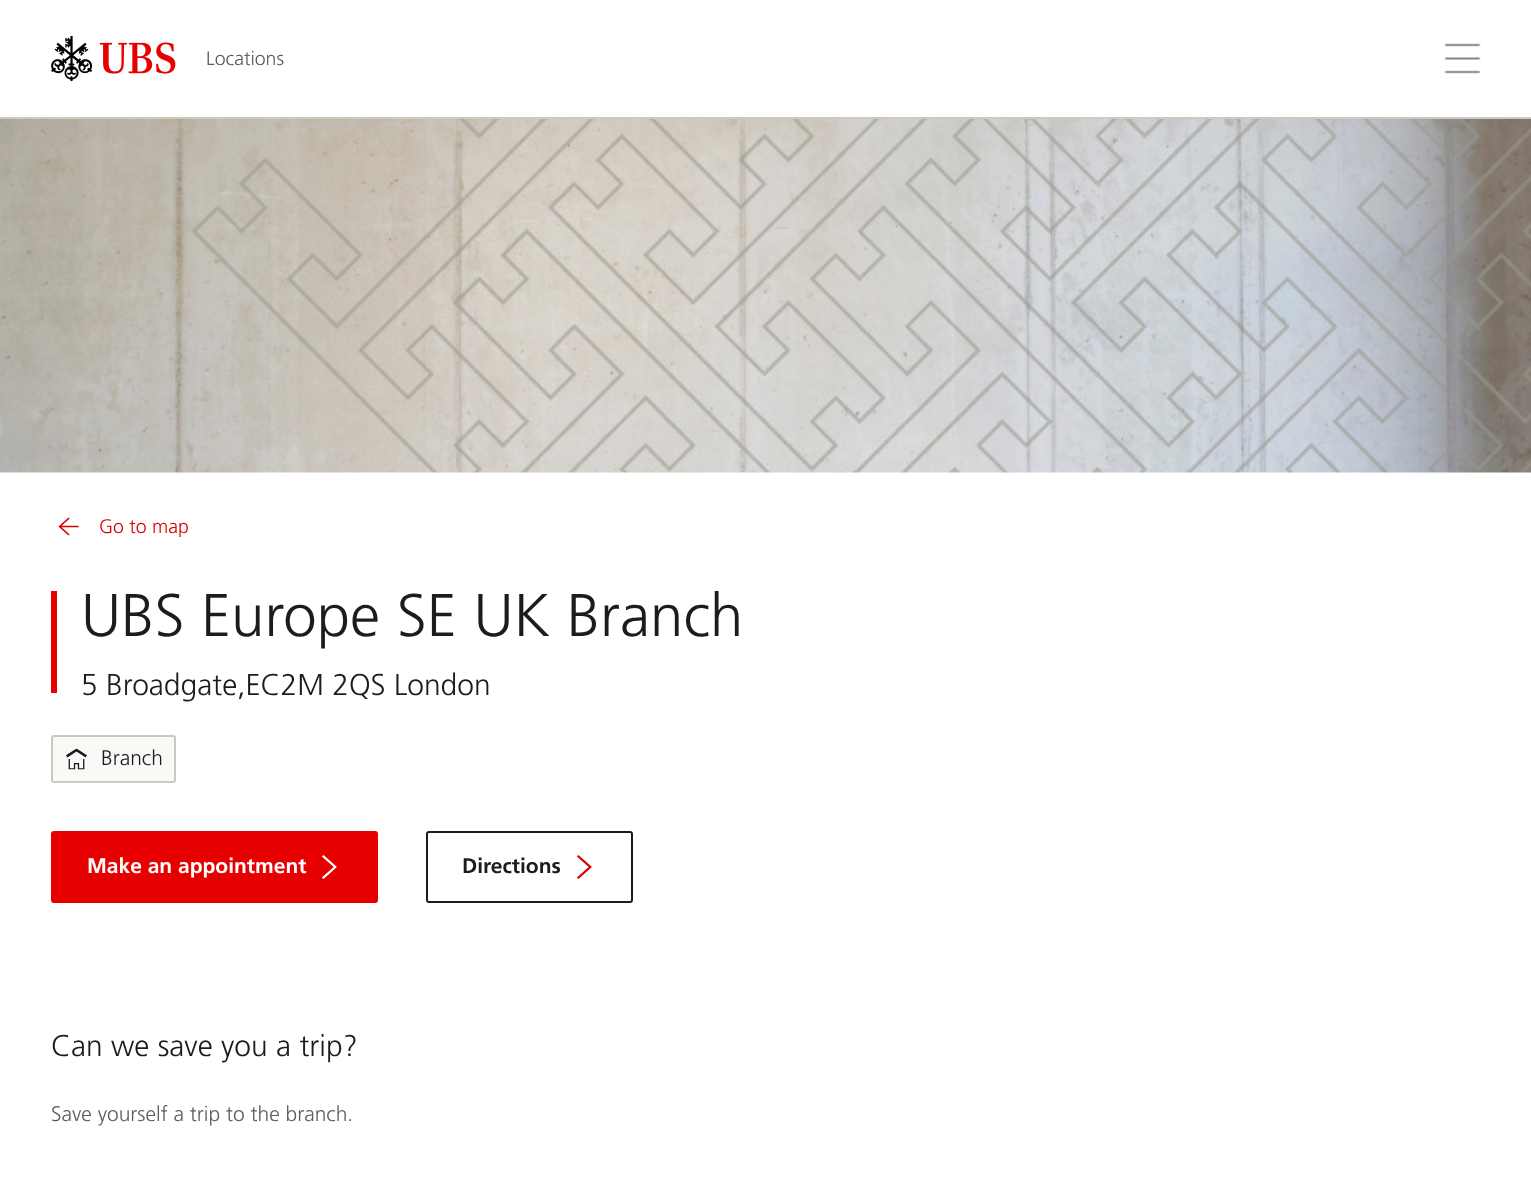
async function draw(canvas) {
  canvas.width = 1531;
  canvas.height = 1177;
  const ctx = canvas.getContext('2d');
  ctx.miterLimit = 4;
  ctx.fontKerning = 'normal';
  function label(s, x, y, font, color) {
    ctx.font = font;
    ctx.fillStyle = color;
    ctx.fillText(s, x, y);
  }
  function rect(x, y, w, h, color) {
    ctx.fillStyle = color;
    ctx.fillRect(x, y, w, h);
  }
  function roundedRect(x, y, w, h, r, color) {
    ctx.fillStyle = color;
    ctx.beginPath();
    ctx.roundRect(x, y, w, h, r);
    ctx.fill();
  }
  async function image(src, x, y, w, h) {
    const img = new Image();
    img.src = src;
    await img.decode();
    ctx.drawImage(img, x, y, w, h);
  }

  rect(0, 0, 1531, 1177, '#fff');
  rect(0, 117, 1531, 2, '#cccabc');
  await image('assets/img1.png', 51, 36, 125, 45);
  label('Locations', 206, 65, '300 19.5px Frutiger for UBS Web', '#5a5d5c');
  await image('assets/img2.png', 1444, 43, 37, 31);
  await image('assets/img3.png', 0, 119, 1531, 354);
  await image('assets/img4.png', 58, 517, 21, 19);
  label('Go to map', 99, 533, '300 19.5px Frutiger for UBS Web', '#da0000');
  rect(51, 591, 6, 102, '#e60000');
  label('UBS Europe SE UK Branch', 81, 636, '300 60px Frutiger for UBS Web', '#1c1c1c');
  label('5 Broadgate,EC2M 2QS London', 81, 695, '300 30px Frutiger for UBS Web', '#1c1c1c');
  ctx.fillStyle = '#f9f9f7';
  ctx.beginPath();
  ctx.roundRect(52, 736, 123, 46, 2);
  ctx.fill();
  ctx.strokeStyle = '#cccabc';
  ctx.lineWidth = 2;
  ctx.stroke();
  await image('assets/img5.png', 66, 748, 21, 22);
  label('Branch', 101, 765, '300 21px Frutiger for UBS Web', '#1c1c1c');
  roundedRect(51, 831, 327, 72, 3, '#e60000');
  label('Make an appointment', 87, 873, '500 21px Frutiger for UBS Web', '#fff');
  await image('assets/img6.png', 322, 855, 15, 24);
  ctx.beginPath();
  ctx.roundRect(427, 832, 205, 70, 2);
  ctx.strokeStyle = '#1c1c1c';
  ctx.stroke();
  label('Directions', 462, 873, '500 21px Frutiger for UBS Web', '#1c1c1c');
  await image('assets/img7.png', 577, 855, 15, 24);
  label('Can we save you a trip?', 51, 1056, '300 30px Frutiger for UBS Web', '#1c1c1c');
  label('Save yourself a trip to the branch.', 51, 1121, '300 21px Frutiger for UBS Web', '#5a5d5c');
}

draw(document.querySelector('canvas'));
